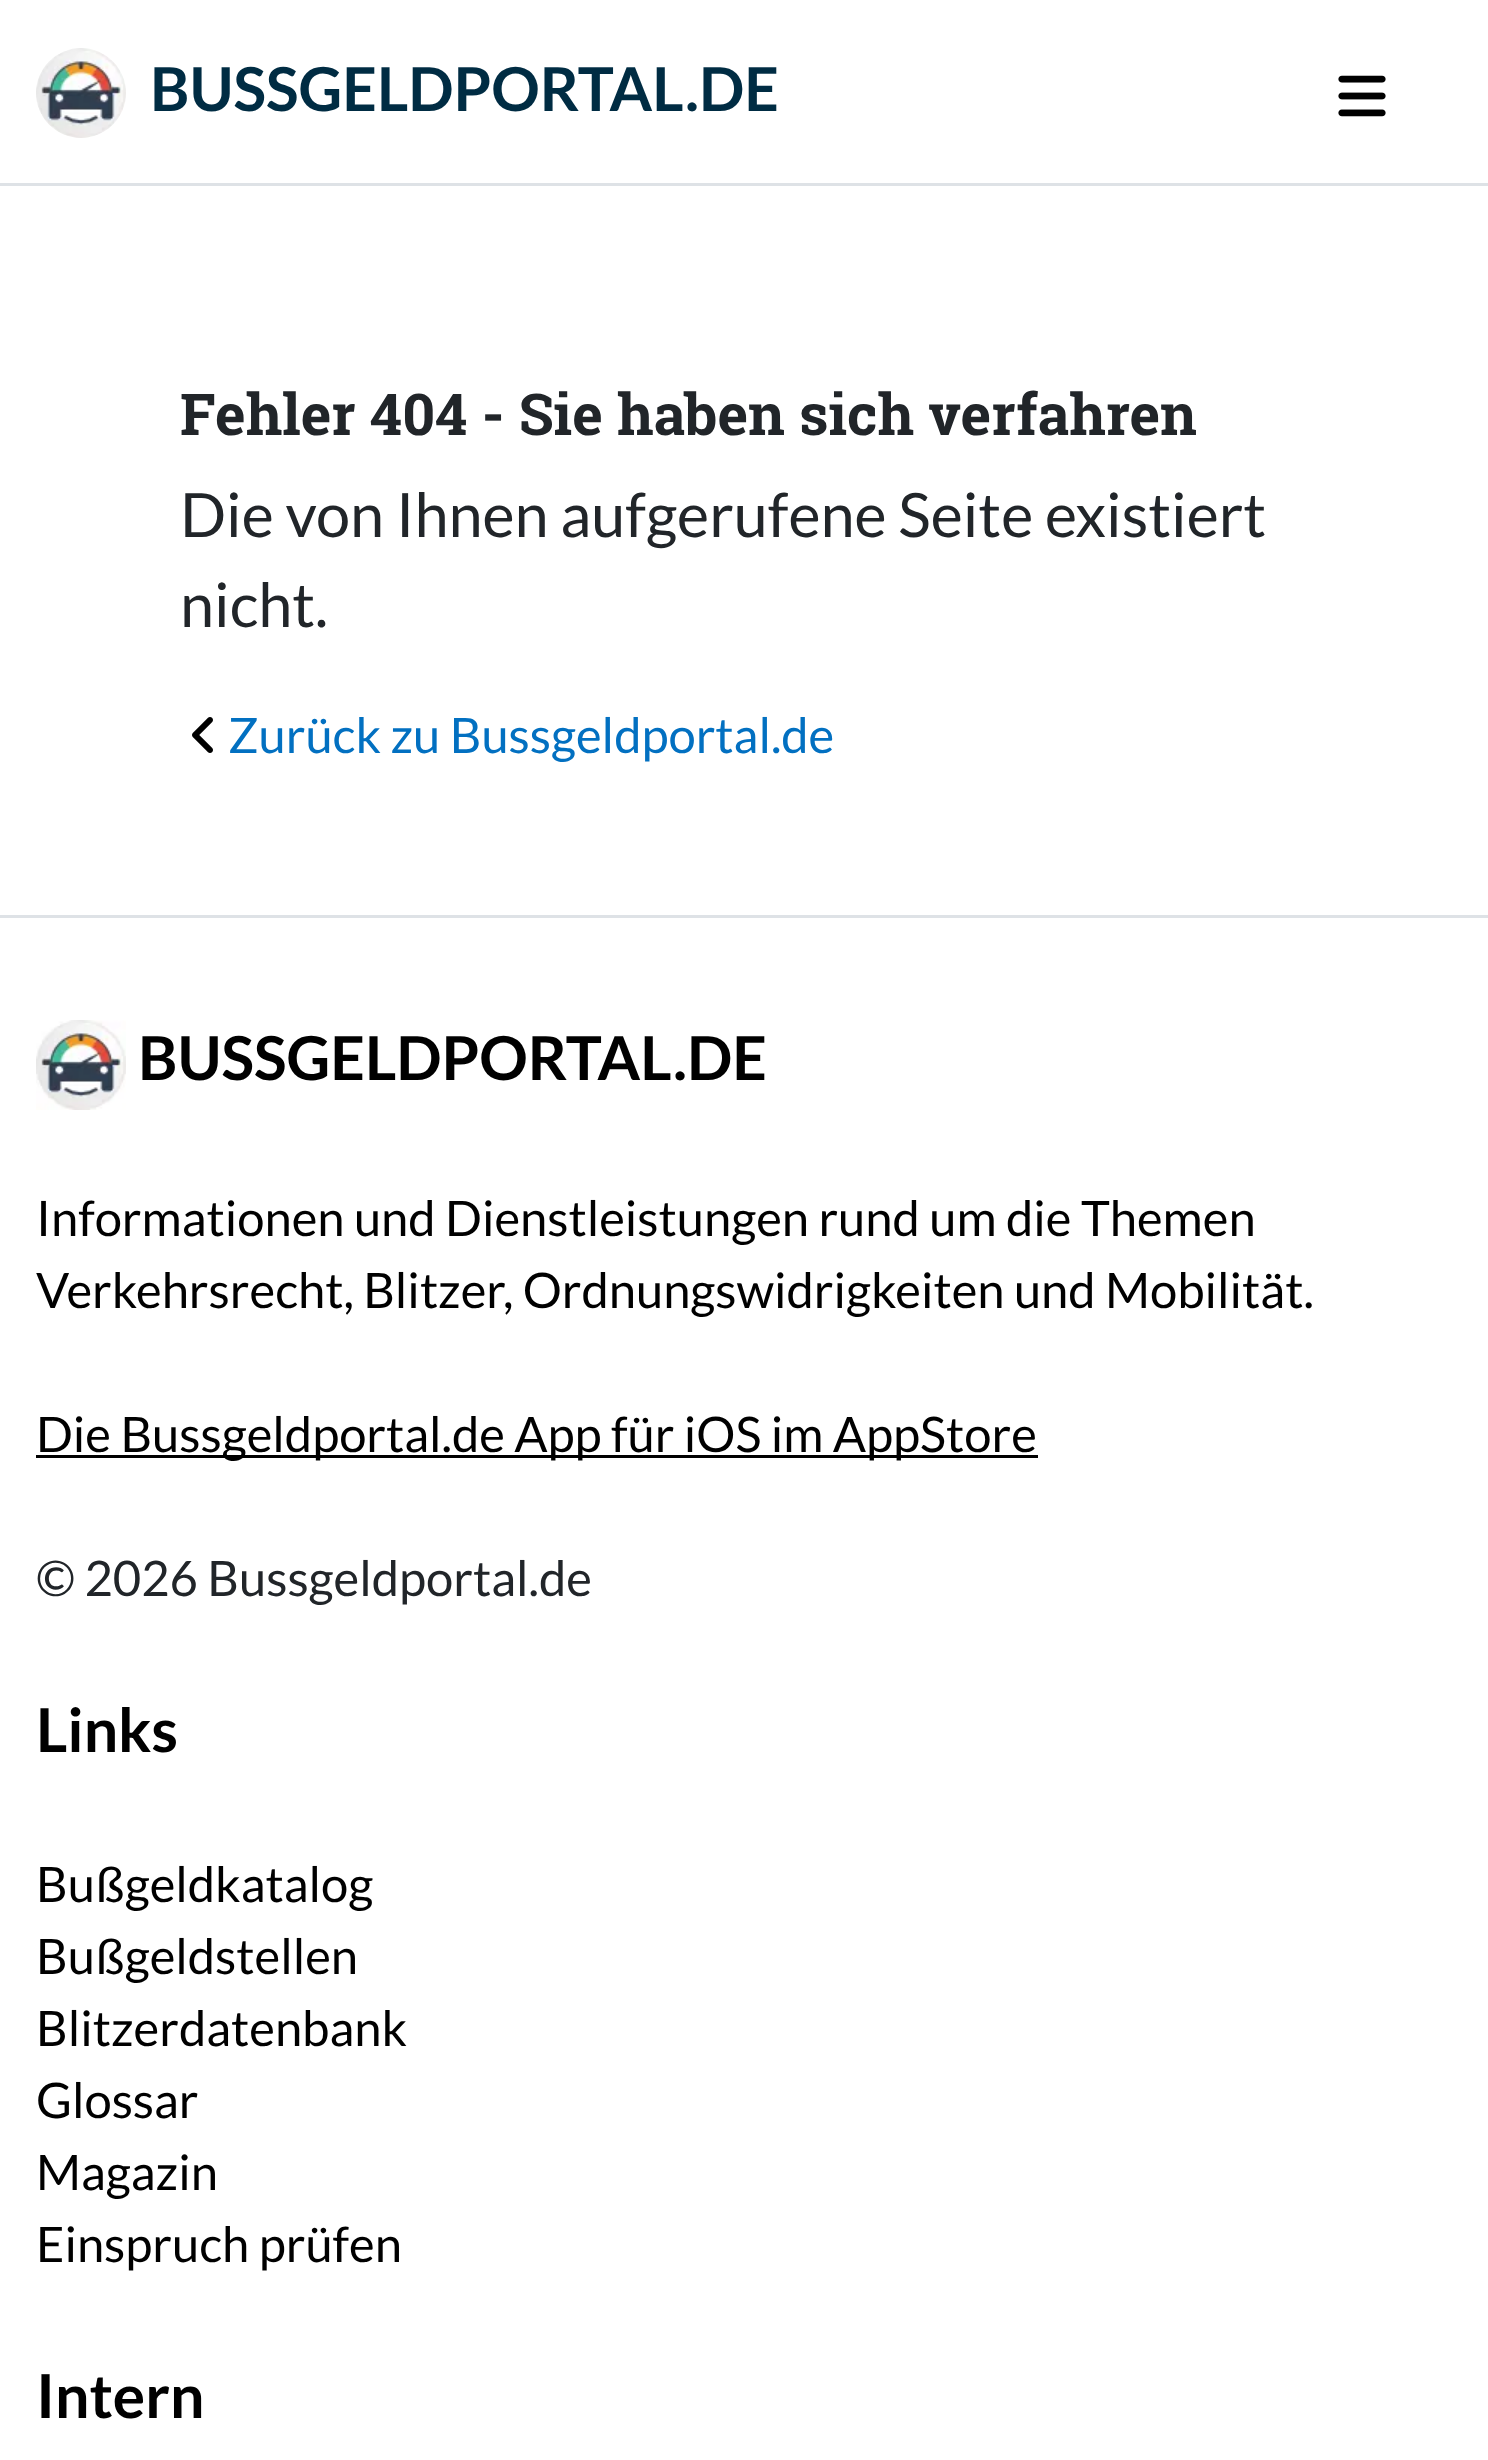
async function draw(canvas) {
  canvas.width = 1488;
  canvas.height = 2460;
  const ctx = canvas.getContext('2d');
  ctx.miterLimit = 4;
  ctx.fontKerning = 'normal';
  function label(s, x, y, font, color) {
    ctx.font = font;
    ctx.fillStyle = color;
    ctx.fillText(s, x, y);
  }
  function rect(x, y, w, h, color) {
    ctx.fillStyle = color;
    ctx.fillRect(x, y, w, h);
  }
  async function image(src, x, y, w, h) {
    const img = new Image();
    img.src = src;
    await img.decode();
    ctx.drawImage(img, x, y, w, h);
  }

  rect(0, 0, 1488, 2460, '#fff');
  rect(0, 183, 1488, 3, '#dee2e6');
  await image('assets/img1.png', 36, 48, 90, 90);
  label('BUSSGELDPORTAL.DE', 150, 111, 'bold 60px Lato', '#002c43');
  await image('assets/img2.png', 1338, 75, 48, 42);
  label('Fehler 404 - Sie haben sich verfahren', 180, 435, 'bold 57.6px Roboto Slab', '#212529');
  label('Die von Ihnen aufgerufene Seite existiert', 180, 537, '60px Lato', '#212529');
  label('nicht.', 180, 627, '60px Lato', '#212529');
  await image('assets/img3.png', 192, 717, 21, 36);
  label('Zurück zu Bussgeldportal.de', 228, 753, '48px Lato', '#0270c1');
  rect(0, 915, 1488, 3, '#dee2e6');
  await image('assets/img4.png', 36, 1020, 90, 90);
  label('BUSSGELDPORTAL.DE', 138, 1080, 'bold 60px Lato', '#000');
  label('Informationen und Dienstleistungen rund um die Themen', 36, 1236, '48px Lato', '#000');
  label('Verkehrsrecht, Blitzer, Ordnungswidrigkeiten und Mobilität.', 36, 1308, '48px Lato', '#000');
  rect(36, 1455, 1002, 3, '#000');
  label('Die Bussgeldportal.de App für iOS im AppStore', 36, 1452, '48px Lato', '#000');
  label('© 2026 Bussgeldportal.de', 36, 1596, '48px Lato', '#212529');
  label('Links', 36, 1752, 'bold 60px Lato', '#000');
  label('Bußgeldkatalog', 36, 1902, '48px Lato', '#000');
  label('Bußgeldstellen', 36, 1974, '48px Lato', '#000');
  label('Blitzerdatenbank', 36, 2046, '48px Lato', '#000');
  label('Glossar', 36, 2118, '48px Lato', '#000');
  label('Magazin', 36, 2190, '48px Lato', '#000');
  label('Einspruch prüfen', 36, 2262, '48px Lato', '#000');
  label('Intern', 36, 2418, 'bold 60px Lato', '#000');
}

draw(document.querySelector('canvas'));
